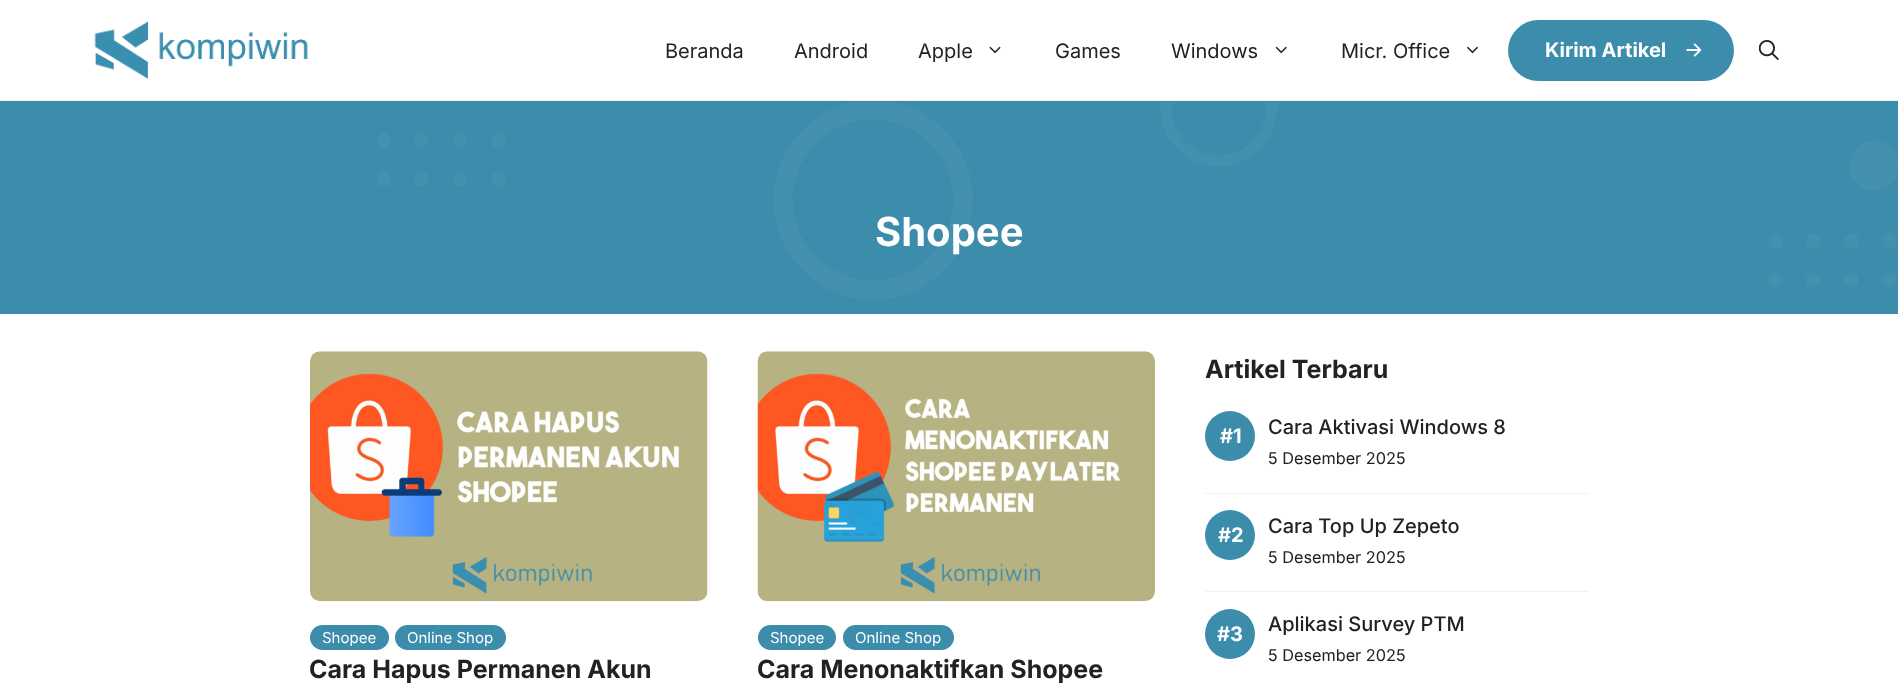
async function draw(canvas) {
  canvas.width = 1898;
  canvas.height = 683;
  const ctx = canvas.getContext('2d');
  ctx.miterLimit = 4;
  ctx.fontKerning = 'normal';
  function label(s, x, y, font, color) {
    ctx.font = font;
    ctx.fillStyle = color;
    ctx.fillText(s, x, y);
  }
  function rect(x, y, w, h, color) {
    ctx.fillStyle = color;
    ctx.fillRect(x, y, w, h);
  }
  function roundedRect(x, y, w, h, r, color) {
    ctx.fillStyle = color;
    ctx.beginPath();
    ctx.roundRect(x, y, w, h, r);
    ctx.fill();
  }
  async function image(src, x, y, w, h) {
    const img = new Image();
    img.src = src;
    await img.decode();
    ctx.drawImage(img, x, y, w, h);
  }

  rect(0, 0, 1898, 683, '#fff');
  rect(0, 100, 1898, 1, '#f1f1f1');
  await image('assets/img1.png', 94, 21, 214, 58);
  label('Beranda', 665, 58, '20px Inter', '#222');
  label('Android', 794, 58, '20px Inter', '#222');
  label('Apple', 918, 58, '20px Inter', '#222');
  await image('assets/img2.png', 989, 46, 12, 8);
  label('Games', 1055, 58, '20px Inter', '#222');
  label('Windows', 1171, 58, '20px Inter', '#222');
  await image('assets/img3.png', 1275, 46, 12, 8);
  label('Micr. Office', 1341, 58, '20px Inter', '#222');
  await image('assets/img4.png', 1467, 46, 11, 8);
  roundedRect(1508, 20, 226, 61, 30.5, '#3c8cac');
  label('Kirim Artikel', 1545, 57, 'bold 20px Inter', '#fff');
  await image('assets/img5.png', 1686, 43, 16, 14);
  await image('assets/img6.png', 1759, 40, 20, 20);
  rect(0, 101, 1898, 213, '#3c8cac');
  await image('assets/img7.png', 376, 102, 1522, 198);
  label('Shopee', 875, 246, 'bold 40px Inter', '#fff');
  await image('assets/img8.png', 310, 351, 398, 251);
  roundedRect(310, 625, 79, 25, 12.5, '#3c8cac');
  label('Shopee', 322, 643, '15px Inter', '#fff');
  roundedRect(395, 625, 111, 25, 12.5, '#3c8cac');
  label('Online Shop', 407, 643, '15px Inter', '#fff');
  label('Cara Hapus Permanen Akun', 309, 678, 'bold 25px Inter', '#222');
  await image('assets/img9.png', 757, 351, 398, 251);
  roundedRect(758, 625, 78, 25, 12.5, '#3c8cac');
  label('Shopee', 770, 643, '15px Inter', '#fff');
  roundedRect(843, 625, 111, 25, 12.5, '#3c8cac');
  label('Online Shop', 855, 643, '15px Inter', '#fff');
  label('Cara Menonaktifkan Shopee', 757, 678, 'bold 25px Inter', '#222');
  label('Artikel Terbaru', 1205, 378, 'bold 25px Inter', '#222');
  rect(1205, 493, 384, 1, '#f1f1f1');
  ctx.fillStyle = '#3c8cac';
  ctx.beginPath();
  ctx.arc(1230, 436, 25, 0, 2 * Math.PI);
  ctx.fill();
  label('#1', 1220, 443, 'bold 20px Inter', '#fff');
  label('Cara Aktivasi Windows 8', 1268, 434, '500 20px Inter', '#222');
  label('5 Desember 2025', 1268, 464, '16.25px Inter', '#222');
  rect(1205, 591, 384, 1, '#f1f1f1');
  ctx.fillStyle = '#3c8cac';
  ctx.beginPath();
  ctx.arc(1230, 535, 25, 0, 2 * Math.PI);
  ctx.fill();
  label('#2', 1218, 542, 'bold 20px Inter', '#fff');
  label('Cara Top Up Zepeto', 1268, 533, '500 20px Inter', '#222');
  label('5 Desember 2025', 1268, 563, '16.25px Inter', '#222');
  ctx.fillStyle = '#3c8cac';
  ctx.beginPath();
  ctx.arc(1230, 634, 25, 0, 2 * Math.PI);
  ctx.fill();
  label('#3', 1217, 641, 'bold 20px Inter', '#fff');
  label('Aplikasi Survey PTM', 1268, 631, '500 20px Inter', '#222');
  label('5 Desember 2025', 1268, 661, '16.25px Inter', '#222');
}

draw(document.querySelector('canvas'));
